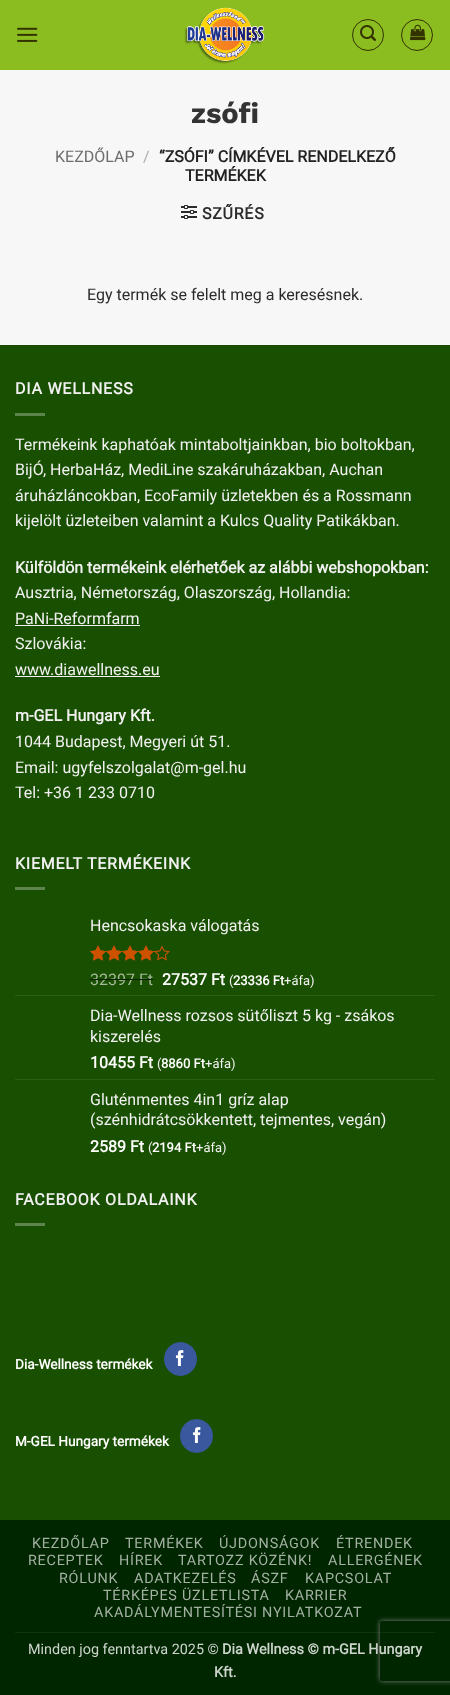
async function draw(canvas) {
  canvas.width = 450;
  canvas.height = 1695;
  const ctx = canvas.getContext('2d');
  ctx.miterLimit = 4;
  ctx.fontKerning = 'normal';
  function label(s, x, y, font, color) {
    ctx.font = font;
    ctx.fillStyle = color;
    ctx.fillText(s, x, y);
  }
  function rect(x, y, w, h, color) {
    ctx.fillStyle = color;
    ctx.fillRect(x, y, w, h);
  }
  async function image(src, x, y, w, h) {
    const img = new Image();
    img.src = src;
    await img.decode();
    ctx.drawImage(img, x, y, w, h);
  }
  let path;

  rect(0, 0, 450, 1695, '#f7f7f7');
  rect(0, 0, 450, 70, '#8bbc20');
  await image('assets/img1.png', 17, 27, 21, 15);
  await image('assets/img2.png', 184, 7, 81, 57);
  ctx.beginPath();
  ctx.arc(368, 35, 15.5, 0, 2 * Math.PI);
  ctx.strokeStyle = '#330';
  ctx.stroke();
  await image('assets/img3.png', 360, 25, 16, 16);
  ctx.beginPath();
  ctx.arc(417, 35, 15.5, 0, 2 * Math.PI);
  ctx.stroke();
  await image('assets/img4.png', 410, 24, 16, 17);
  label('zsófi', 191, 123, 'bold 29px Work Sans', '#333');
  label('KEZDŐLAP', 55, 162, '16px Roboto', '#6d6d6d');
  label('/', 143, 162, '16px Roboto', '#acacac');
  label('“ZSÓFI” CÍMKÉVEL RENDELKEZŐ', 159, 162, 'bold 16px Roboto', '#222');
  label('TERMÉKEK', 185, 181, 'bold 16px Roboto', '#222');
  await image('assets/img5.png', 181, 205, 16, 14);
  ctx.letterSpacing = '0.75px';
  label('SZŰRÉS', 202, 219, 'bold 16px Roboto', '#2b2b2b');
  ctx.letterSpacing = '0px';
  label('Egy termék se felelt meg a keresésnek.', 87, 300, '16px Roboto', '#2b2b2b');
  rect(0, 346, 450, 1174, '#194f00');
  rect(0, 345, 450, 1, '#184b00');
  ctx.letterSpacing = '0.75px';
  label('DIA WELLNESS', 15, 394, 'bold 16px Roboto', '#f1f1f1');
  rect(15, 413, 30, 3, '#5e844d');
  ctx.letterSpacing = '0px';
  label('Termékeink kaphatóak mintaboltjainkban, bio boltokban,', 15, 450, '16px Roboto', '#f1f1f1');
  label('BijÓ, HerbaHáz, MediLine szakáruházakban, Auchan', 15, 475, '16px Roboto', '#f1f1f1');
  label('áruházláncokban, EcoFamily üzletekben és a Rossmann', 15, 501, '16px Roboto', '#f1f1f1');
  label('kijelölt üzleteiben valamint a Kulcs Quality Patikákban.', 15, 526, '16px Roboto', '#f1f1f1');
  label('Külföldön termékeink elérhetőek az alábbi webshopokban:', 15, 573, 'bold 16px Roboto', '#f1f1f1');
  label('Ausztria, Németország, Olaszország, Hollandia:', 15, 598, '16px Roboto', '#f1f1f1');
  label('PaNi-Reformfarm', 15, 624, '16px Roboto', '#f1f1f1');
  rect(15, 625, 125, 1, '#f1f1f1');
  label('Szlovákia:', 15, 649, '16px Roboto', '#f1f1f1');
  label('www.diawellness.eu', 15, 675, '16px Roboto', '#f1f1f1');
  rect(15, 676, 145, 1, '#f1f1f1');
  label('m-GEL Hungary Kft.', 15, 721, 'bold 16px Roboto', '#f1f1f1');
  label('1044 Budapest, Megyeri út 51.', 15, 747, '16px Roboto', '#f1f1f1');
  label('Email: ugyfelszolgalat@m-gel.hu', 15, 773, '16px Roboto', '#f1f1f1');
  label('Tel: +36 1 233 0710', 15, 798, '16px Roboto', '#f1f1f1');
  ctx.letterSpacing = '0.75px';
  label('KIEMELT TERMÉKEINK', 15, 869, 'bold 16px Roboto', '#f1f1f1');
  rect(15, 887, 30, 3, '#5e844d');
  ctx.letterSpacing = '0px';
  label('Hencsokaska válogatás', 90, 931, '16px Roboto', '#f1f1f1');
  await image('assets/img6.png', 90, 945, 80, 16);
  await image('assets/img7.png', 90, 945, 65, 16);
  label('32397 Ft', 90, 985, '16px Roboto', '#a3b999');
  rect(90, 979, 63, 1, '#0a2000');
  label('27537 Ft', 162, 985, 'bold 16px Roboto', '#fff');
  label('(', 229, 985, '13px Roboto', '#f1f1f1');
  label('23336 Ft', 233, 985, 'bold 13px Roboto', '#fff');
  label('+áfa)', 284, 985, '13px Roboto', '#f1f1f1');
  rect(15, 995, 420, 1, '#2b5d14');
  label('Dia-Wellness rozsos sütőliszt 5 kg - zsákos', 90, 1021, '16px Roboto', '#f1f1f1');
  label('kiszerelés', 90, 1042, '16px Roboto', '#f1f1f1');
  label('10455 Ft', 90, 1068, 'bold 16px Roboto', '#fff');
  label('(', 157, 1068, '13px Roboto', '#f1f1f1');
  label('8860 Ft', 161, 1068, 'bold 13px Roboto', '#fff');
  label('+áfa)', 205, 1068, '13px Roboto', '#f1f1f1');
  rect(15, 1079, 420, 1, '#2b5d14');
  label('Gluténmentes 4in1 gríz alap', 90, 1105, '16px Roboto', '#f1f1f1');
  label('(szénhidrátcsökkentett, tejmentes, vegán)', 90, 1125, '16px Roboto', '#f1f1f1');
  label('2589 Ft', 90, 1152, 'bold 16px Roboto', '#fff');
  label('(', 148, 1152, '13px Roboto', '#f1f1f1');
  label('2194 Ft', 152, 1152, 'bold 13px Roboto', '#fff');
  label('+áfa)', 196, 1152, '13px Roboto', '#f1f1f1');
  ctx.letterSpacing = '0.75px';
  label('FACEBOOK OLDALAINK', 15, 1205, 'bold 16px Roboto', '#f1f1f1');
  rect(15, 1223, 30, 3, '#5e844d');
  ctx.letterSpacing = '0px';
  label('Dia-Wellness termékek', 15, 1369, 'bold 13.6px Roboto', '#fff');
  ctx.fillStyle = '#3a589d';
  ctx.beginPath();
  ctx.roundRect(164.5, 1342.5, 32, 33, 16);
  ctx.fill();
  ctx.strokeStyle = '#3a589d';
  ctx.stroke();
  await image('assets/img8.png', 175, 1350, 9, 16);
  label('M-GEL Hungary termékek', 15, 1446, 'bold 13.6px Roboto', '#fff');
  ctx.fillStyle = '#3a589d';
  ctx.beginPath();
  ctx.roundRect(180.5, 1419.5, 32, 33, 16);
  ctx.fill();
  ctx.stroke();
  await image('assets/img8.png', 192, 1427, 9, 16);
  rect(0, 1520, 450, 175, '#002600');
  rect(15, 1632, 420, 1, '#103410');
  ctx.letterSpacing = '0.75px';
  label('KEZDŐLAP', 32, 1548, '14.4px Roboto', '#a3b1a3');
  label('TERMÉKEK', 125, 1548, '14.4px Roboto', '#a3b1a3');
  label('ÚJDONSÁGOK', 219, 1548, '14.4px Roboto', '#a3b1a3');
  label('ÉTRENDEK', 336, 1548, '14.4px Roboto', '#a3b1a3');
  label('RECEPTEK', 28, 1565, '14.4px Roboto', '#a3b1a3');
  label('HÍREK', 119, 1565, '14.4px Roboto', '#a3b1a3');
  label('TARTOZZ KÖZÉNK!', 178, 1565, '14.4px Roboto', '#a3b1a3');
  label('ALLERGÉNEK', 328, 1565, '14.4px Roboto', '#a3b1a3');
  label('RÓLUNK', 59, 1583, '14.4px Roboto', '#a3b1a3');
  label('ADATKEZELÉS', 134, 1583, '14.4px Roboto', '#a3b1a3');
  label('ÁSZF', 251, 1583, '14.4px Roboto', '#a3b1a3');
  label('KAPCSOLAT', 305, 1583, '14.4px Roboto', '#a3b1a3');
  label('TÉRKÉPES ÜZLETLISTA', 103, 1600, '14.4px Roboto', '#a3b1a3');
  label('KARRIER', 285, 1600, '14.4px Roboto', '#a3b1a3');
  label('AKADÁLYMENTESÍTÉSI NYILATKOZAT', 94, 1617, '14.4px Roboto', '#a3b1a3');
  ctx.letterSpacing = '0px';
  label('Minden jog fenntartva 2025 ©', 28, 1654, '14.4px Roboto', '#ccd4cc');
  label('Dia Wellness © m-GEL Hungary', 222, 1654, 'bold 14.4px Roboto', '#ccd4cc');
  label('Kft.', 214, 1677, 'bold 14.4px Roboto', '#ccd4cc');
  ctx.save();
  path = new Path2D('M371 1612H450V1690H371ZM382 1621H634C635 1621 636 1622 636 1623V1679C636 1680 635 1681 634 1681H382C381 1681 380 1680 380 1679V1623C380 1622 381 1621 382 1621Z');
  ctx.clip(path, 'evenodd');
  ctx.fillStyle = '#808080';
  ctx.filter = 'blur(2.5px)';
  ctx.beginPath();
  ctx.roundRect(380, 1621, 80, 60, 2);
  ctx.fill();
  ctx.filter = 'none';
  ctx.restore();
}

draw(document.querySelector('canvas'));
